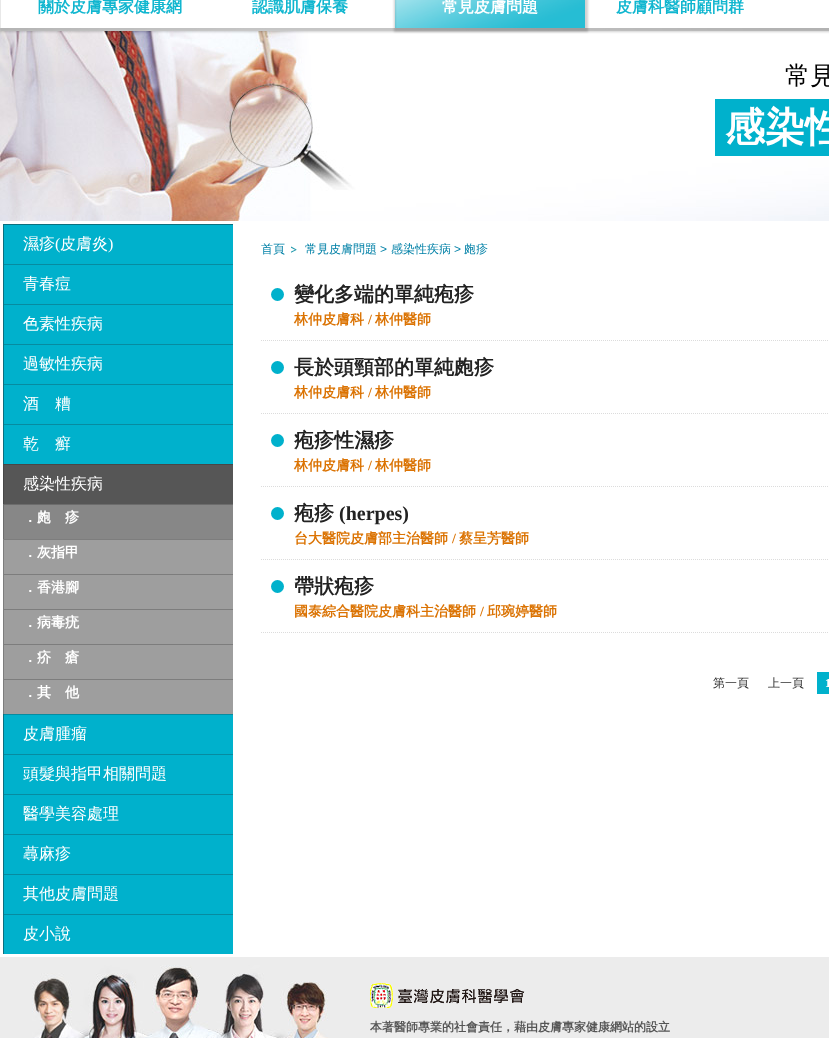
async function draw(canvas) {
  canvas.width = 829;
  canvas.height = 1038;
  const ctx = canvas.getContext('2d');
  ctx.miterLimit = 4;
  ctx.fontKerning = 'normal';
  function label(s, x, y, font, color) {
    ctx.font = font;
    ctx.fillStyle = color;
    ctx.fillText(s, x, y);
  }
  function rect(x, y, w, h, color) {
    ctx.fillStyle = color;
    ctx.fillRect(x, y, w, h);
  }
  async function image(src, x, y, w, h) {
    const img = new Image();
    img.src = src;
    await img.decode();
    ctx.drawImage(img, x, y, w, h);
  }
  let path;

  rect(0, 0, 829, 1038, '#d9d9d9');
  await image('assets/img1.png', 0, 28, 770, 3);
  await image('assets/img3.png', 0, 31, 829, 190);
  ctx.fillStyle = '#1a1a1a33';
  ctx.filter = 'blur(1px)';
  ctx.beginPath();
  ctx.rect(-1, -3, 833, 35);
  ctx.fill();
  ctx.filter = 'none';
  rect(1, 0, 828, 28, '#fff');
  ctx.save();
  ctx.beginPath();
  ctx.rect(0, 0, 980, 28);
  ctx.clip();
  ctx.fillStyle = '#e8e8e8';
  path = new Path2D('M-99-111H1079V127H-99ZM1-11H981V29H1Z');
  ctx.fill(path, 'evenodd');
  ctx.restore();
  label('關於皮膚專家健康網', 38, 12, 'bold 16px WenQuanYi Zen Hei', '#10b6cf');
  label('認識肌膚保養', 252, 12, 'bold 16px WenQuanYi Zen Hei', '#10b6cf');
  ctx.save();
  path = new Path2D('M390 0H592V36H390ZM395-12H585V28H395Z');
  ctx.clip(path, 'evenodd');
  ctx.fillStyle = '#1a1a1a33';
  ctx.filter = 'blur(1px)';
  ctx.beginPath();
  ctx.rect(394, -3, 194, 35);
  ctx.fill();
  ctx.filter = 'none';
  ctx.restore();
  await image('assets/img2.png', 395, 0, 190, 28);
  label('常見皮膚問題', 442, 12, 'bold 16px WenQuanYi Zen Hei', '#fff');
  label('皮膚科醫師顧問群', 616, 12, 'bold 16px WenQuanYi Zen Hei', '#10b6cf');
  label('常見', 785, 84, '500 25px WenQuanYi Zen Hei', '#000');
  rect(715, 99, 114, 57, '#00b1cc');
  label('感染性', 725, 141, 'bold 40px WenQuanYi Zen Hei', '#fff');
  rect(236, 221, 593, 736, '#fff');
  rect(4, 225, 229, 729, '#00b1cc');
  ctx.save();
  ctx.beginPath();
  ctx.rect(3, 224, 230, 730);
  ctx.clip();
  ctx.fillStyle = '#078ba0';
  path = new Path2D('M-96 125H332V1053H-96ZM4 225H234V955H4Z');
  ctx.fill(path, 'evenodd');
  ctx.restore();
  ctx.strokeStyle = '#fff';
  ctx.lineWidth = 3;
  ctx.strokeRect(1.5, 222.5, 233, 733);
  ctx.save();
  ctx.beginPath();
  ctx.rect(3, 224, 230, 40);
  ctx.clip();
  ctx.fillStyle = '#0c6f7f';
  path = new Path2D('M-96 125H332V363H-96ZM4 225H234V265H4Z');
  ctx.fill(path, 'evenodd');
  ctx.restore();
  label('濕疹', 23, 249, '500 16px WenQuanYi Zen Hei', '#fff');
  label('(', 55, 249, '16px Liberation Serif', '#fff');
  label('皮膚炎', 60, 249, '500 16px WenQuanYi Zen Hei', '#fff');
  label(')', 108, 249, '16px Liberation Serif', '#fff');
  ctx.save();
  ctx.beginPath();
  ctx.rect(3, 264, 230, 40);
  ctx.clip();
  ctx.fillStyle = '#1a1a1a40';
  path = new Path2D('M-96 165H332V403H-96ZM4 265H234V305H4Z');
  ctx.fill(path, 'evenodd');
  ctx.restore();
  label('青春痘', 23, 289, '500 16px WenQuanYi Zen Hei', '#fff');
  ctx.save();
  ctx.beginPath();
  ctx.rect(3, 304, 230, 40);
  ctx.clip();
  ctx.fillStyle = '#1a1a1a40';
  path = new Path2D('M-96 205H332V443H-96ZM4 305H234V345H4Z');
  ctx.fill(path, 'evenodd');
  ctx.restore();
  label('色素性疾病', 23, 329, '500 16px WenQuanYi Zen Hei', '#fff');
  ctx.save();
  ctx.beginPath();
  ctx.rect(3, 344, 230, 40);
  ctx.clip();
  ctx.fillStyle = '#1a1a1a40';
  path = new Path2D('M-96 245H332V483H-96ZM4 345H234V385H4Z');
  ctx.fill(path, 'evenodd');
  ctx.restore();
  label('過敏性疾病', 23, 369, '500 16px WenQuanYi Zen Hei', '#fff');
  ctx.save();
  ctx.beginPath();
  ctx.rect(3, 384, 230, 40);
  ctx.clip();
  ctx.fillStyle = '#1a1a1a40';
  path = new Path2D('M-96 285H332V523H-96ZM4 385H234V425H4Z');
  ctx.fill(path, 'evenodd');
  ctx.restore();
  label('酒　糟', 23, 409, '500 16px WenQuanYi Zen Hei', '#fff');
  ctx.save();
  ctx.beginPath();
  ctx.rect(3, 424, 230, 40);
  ctx.clip();
  ctx.fillStyle = '#1a1a1a40';
  path = new Path2D('M-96 325H332V563H-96ZM4 425H234V465H4Z');
  ctx.fill(path, 'evenodd');
  ctx.restore();
  label('乾　癬', 23, 449, '500 16px WenQuanYi Zen Hei', '#fff');
  rect(4, 465, 229, 39, '#565656');
  ctx.save();
  ctx.beginPath();
  ctx.rect(3, 464, 230, 40);
  ctx.clip();
  ctx.fillStyle = '#474747';
  path = new Path2D('M-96 365H332V603H-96ZM4 465H234V505H4Z');
  ctx.fill(path, 'evenodd');
  ctx.restore();
  label('感染性疾病', 23, 489, '500 16px WenQuanYi Zen Hei', '#fff');
  rect(4, 505, 229, 34, '#878787');
  ctx.save();
  ctx.beginPath();
  ctx.rect(3, 504, 230, 35);
  ctx.clip();
  ctx.fillStyle = '#6c6c6c';
  path = new Path2D('M-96 405H332V638H-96ZM4 505H234V540H4Z');
  ctx.fill(path, 'evenodd');
  ctx.restore();
  label('．皰　疹', 23, 522, 'bold 14px WenQuanYi Zen Hei', '#fff');
  rect(4, 540, 229, 34, '#9e9e9e');
  ctx.save();
  ctx.beginPath();
  ctx.rect(3, 539, 230, 35);
  ctx.clip();
  ctx.fillStyle = '#7d7d7d';
  path = new Path2D('M-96 440H332V673H-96ZM4 540H234V575H4Z');
  ctx.fill(path, 'evenodd');
  ctx.restore();
  label('．灰指甲', 23, 557, 'bold 14px WenQuanYi Zen Hei', '#fff');
  rect(4, 575, 229, 34, '#9e9e9e');
  ctx.save();
  ctx.beginPath();
  ctx.rect(3, 574, 230, 35);
  ctx.clip();
  ctx.fillStyle = '#7d7d7d';
  path = new Path2D('M-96 475H332V708H-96ZM4 575H234V610H4Z');
  ctx.fill(path, 'evenodd');
  ctx.restore();
  label('．香港腳', 23, 592, 'bold 14px WenQuanYi Zen Hei', '#fff');
  rect(4, 610, 229, 34, '#9e9e9e');
  ctx.save();
  ctx.beginPath();
  ctx.rect(3, 609, 230, 35);
  ctx.clip();
  ctx.fillStyle = '#7d7d7d';
  path = new Path2D('M-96 510H332V743H-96ZM4 610H234V645H4Z');
  ctx.fill(path, 'evenodd');
  ctx.restore();
  label('．病毒疣', 23, 627, 'bold 14px WenQuanYi Zen Hei', '#fff');
  rect(4, 645, 229, 34, '#9e9e9e');
  ctx.save();
  ctx.beginPath();
  ctx.rect(3, 644, 230, 35);
  ctx.clip();
  ctx.fillStyle = '#7d7d7d';
  path = new Path2D('M-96 545H332V778H-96ZM4 645H234V680H4Z');
  ctx.fill(path, 'evenodd');
  ctx.restore();
  label('．疥　瘡', 23, 662, 'bold 14px WenQuanYi Zen Hei', '#fff');
  rect(4, 680, 229, 34, '#9e9e9e');
  ctx.save();
  ctx.beginPath();
  ctx.rect(3, 679, 230, 35);
  ctx.clip();
  ctx.fillStyle = '#7d7d7d';
  path = new Path2D('M-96 580H332V813H-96ZM4 680H234V715H4Z');
  ctx.fill(path, 'evenodd');
  ctx.restore();
  label('．其　他', 23, 697, 'bold 14px WenQuanYi Zen Hei', '#fff');
  ctx.save();
  ctx.beginPath();
  ctx.rect(3, 714, 230, 40);
  ctx.clip();
  ctx.fillStyle = '#1a1a1a40';
  path = new Path2D('M-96 615H332V853H-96ZM4 715H234V755H4Z');
  ctx.fill(path, 'evenodd');
  ctx.restore();
  label('皮膚腫瘤', 23, 739, '500 16px WenQuanYi Zen Hei', '#fff');
  ctx.save();
  ctx.beginPath();
  ctx.rect(3, 754, 230, 40);
  ctx.clip();
  ctx.fillStyle = '#1a1a1a40';
  path = new Path2D('M-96 655H332V893H-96ZM4 755H234V795H4Z');
  ctx.fill(path, 'evenodd');
  ctx.restore();
  label('頭髮與指甲相關問題', 23, 779, '500 16px WenQuanYi Zen Hei', '#fff');
  ctx.save();
  ctx.beginPath();
  ctx.rect(3, 794, 230, 40);
  ctx.clip();
  ctx.fillStyle = '#1a1a1a40';
  path = new Path2D('M-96 695H332V933H-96ZM4 795H234V835H4Z');
  ctx.fill(path, 'evenodd');
  ctx.restore();
  label('醫學美容處理', 23, 819, '500 16px WenQuanYi Zen Hei', '#fff');
  ctx.save();
  ctx.beginPath();
  ctx.rect(3, 834, 230, 40);
  ctx.clip();
  ctx.fillStyle = '#1a1a1a40';
  path = new Path2D('M-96 735H332V973H-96ZM4 835H234V875H4Z');
  ctx.fill(path, 'evenodd');
  ctx.restore();
  label('蕁麻疹', 23, 859, '500 16px WenQuanYi Zen Hei', '#fff');
  ctx.save();
  ctx.beginPath();
  ctx.rect(3, 874, 230, 40);
  ctx.clip();
  ctx.fillStyle = '#1a1a1a40';
  path = new Path2D('M-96 775H332V1013H-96ZM4 875H234V915H4Z');
  ctx.fill(path, 'evenodd');
  ctx.restore();
  label('其他皮膚問題', 23, 899, '500 16px WenQuanYi Zen Hei', '#fff');
  ctx.save();
  ctx.beginPath();
  ctx.rect(3, 914, 230, 40);
  ctx.clip();
  ctx.fillStyle = '#1a1a1a40';
  path = new Path2D('M-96 815H332V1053H-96ZM4 915H234V955H4Z');
  ctx.fill(path, 'evenodd');
  ctx.restore();
  label('皮小說', 23, 939, '500 16px WenQuanYi Zen Hei', '#fff');
  label('首頁', 261, 253, '500 12px WenQuanYi Zen Hei', '#0080a7');
  await image('assets/img4.png', 291, 246, 6, 7);
  label('常見皮膚問題', 305, 253, '500 12px WenQuanYi Zen Hei', '#0080a7');
  label('>', 380, 253, '12px Liberation Sans', '#0080a7');
  label('感染性疾病', 391, 253, '500 12px WenQuanYi Zen Hei', '#0080a7');
  label('>', 454, 253, '12px Liberation Sans', '#0080a7');
  label('皰疹', 464, 253, '500 12px WenQuanYi Zen Hei', '#0080a7');
  path = new Path2D('M261 340.5H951');
  ctx.strokeStyle = '#dcdcdc';
  ctx.lineWidth = 1;
  ctx.setLineDash([1, 1]);
  ctx.stroke(path);
  ctx.fillStyle = '#00b1cc';
  ctx.beginPath();
  ctx.arc(277.5, 294.5, 6.5, 0, 2 * Math.PI);
  ctx.fill();
  label('變化多端的單純疱疹', 294, 301, 'bold 20px WenQuanYi Zen Hei', '#222');
  label('林仲皮膚科', 294, 324, 'bold 14px WenQuanYi Zen Hei', '#db7303');
  label('/', 368, 324, 'bold 14px Liberation Serif', '#db7303');
  label('林仲醫師', 375, 324, 'bold 14px WenQuanYi Zen Hei', '#db7303');
  path = new Path2D('M261 413.5H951');
  ctx.stroke(path);
  ctx.fillStyle = '#00b1cc';
  ctx.beginPath();
  ctx.arc(277.5, 367.5, 6.5, 0, 2 * Math.PI);
  ctx.fill();
  label('長於頭頸部的單純皰疹', 294, 374, 'bold 20px WenQuanYi Zen Hei', '#222');
  label('林仲皮膚科', 294, 397, 'bold 14px WenQuanYi Zen Hei', '#db7303');
  label('/', 368, 397, 'bold 14px Liberation Serif', '#db7303');
  label('林仲醫師', 375, 397, 'bold 14px WenQuanYi Zen Hei', '#db7303');
  path = new Path2D('M261 486.5H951');
  ctx.stroke(path);
  ctx.fillStyle = '#00b1cc';
  ctx.beginPath();
  ctx.arc(277.5, 440.5, 6.5, 0, 2 * Math.PI);
  ctx.fill();
  label('疱疹性濕疹', 294, 447, 'bold 20px WenQuanYi Zen Hei', '#222');
  label('林仲皮膚科', 294, 470, 'bold 14px WenQuanYi Zen Hei', '#db7303');
  label('/', 368, 470, 'bold 14px Liberation Serif', '#db7303');
  label('林仲醫師', 375, 470, 'bold 14px WenQuanYi Zen Hei', '#db7303');
  path = new Path2D('M261 559.5H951');
  ctx.stroke(path);
  ctx.fillStyle = '#00b1cc';
  ctx.beginPath();
  ctx.arc(277.5, 513.5, 6.5, 0, 2 * Math.PI);
  ctx.fill();
  label('疱疹', 294, 520, 'bold 20px WenQuanYi Zen Hei', '#222');
  label('(herpes)', 339, 520, 'bold 20px Liberation Serif', '#222');
  label('台大醫院皮膚部主治醫師', 294, 543, 'bold 14px WenQuanYi Zen Hei', '#db7303');
  label('/', 452, 543, 'bold 14px Liberation Serif', '#db7303');
  label('蔡呈芳醫師', 459, 543, 'bold 14px WenQuanYi Zen Hei', '#db7303');
  path = new Path2D('M261 632.5H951');
  ctx.stroke(path);
  ctx.fillStyle = '#00b1cc';
  ctx.beginPath();
  ctx.arc(277.5, 586.5, 6.5, 0, 2 * Math.PI);
  ctx.fill();
  label('帶狀疱疹', 294, 593, 'bold 20px WenQuanYi Zen Hei', '#222');
  label('國泰綜合醫院皮膚科主治醫師', 294, 616, 'bold 14px WenQuanYi Zen Hei', '#db7303');
  label('/', 480, 616, 'bold 14px Liberation Serif', '#db7303');
  label('邱琬婷醫師', 487, 616, 'bold 14px WenQuanYi Zen Hei', '#db7303');
  label('第一頁', 713, 687, '500 12px WenQuanYi Zen Hei', '#2f2f2f');
  label('上一頁', 768, 687, '500 12px WenQuanYi Zen Hei', '#2f2f2f');
  rect(817, 672, 12, 22, '#00b1cc');
  label('1', 825, 687, 'bold 12px Liberation Serif', '#fff');
  rect(0, 957, 829, 81, '#ececec');
  await image('assets/img5.png', 32, 965, 296, 73);
  await image('assets/img6.png', 370, 983, 155, 25);
  label('本著醫師專業的社會責任，藉由皮膚專家健康網站的設立', 370, 1031, 'bold 12px WenQuanYi Zen Hei', '#555');
}

draw(document.querySelector('canvas'));
